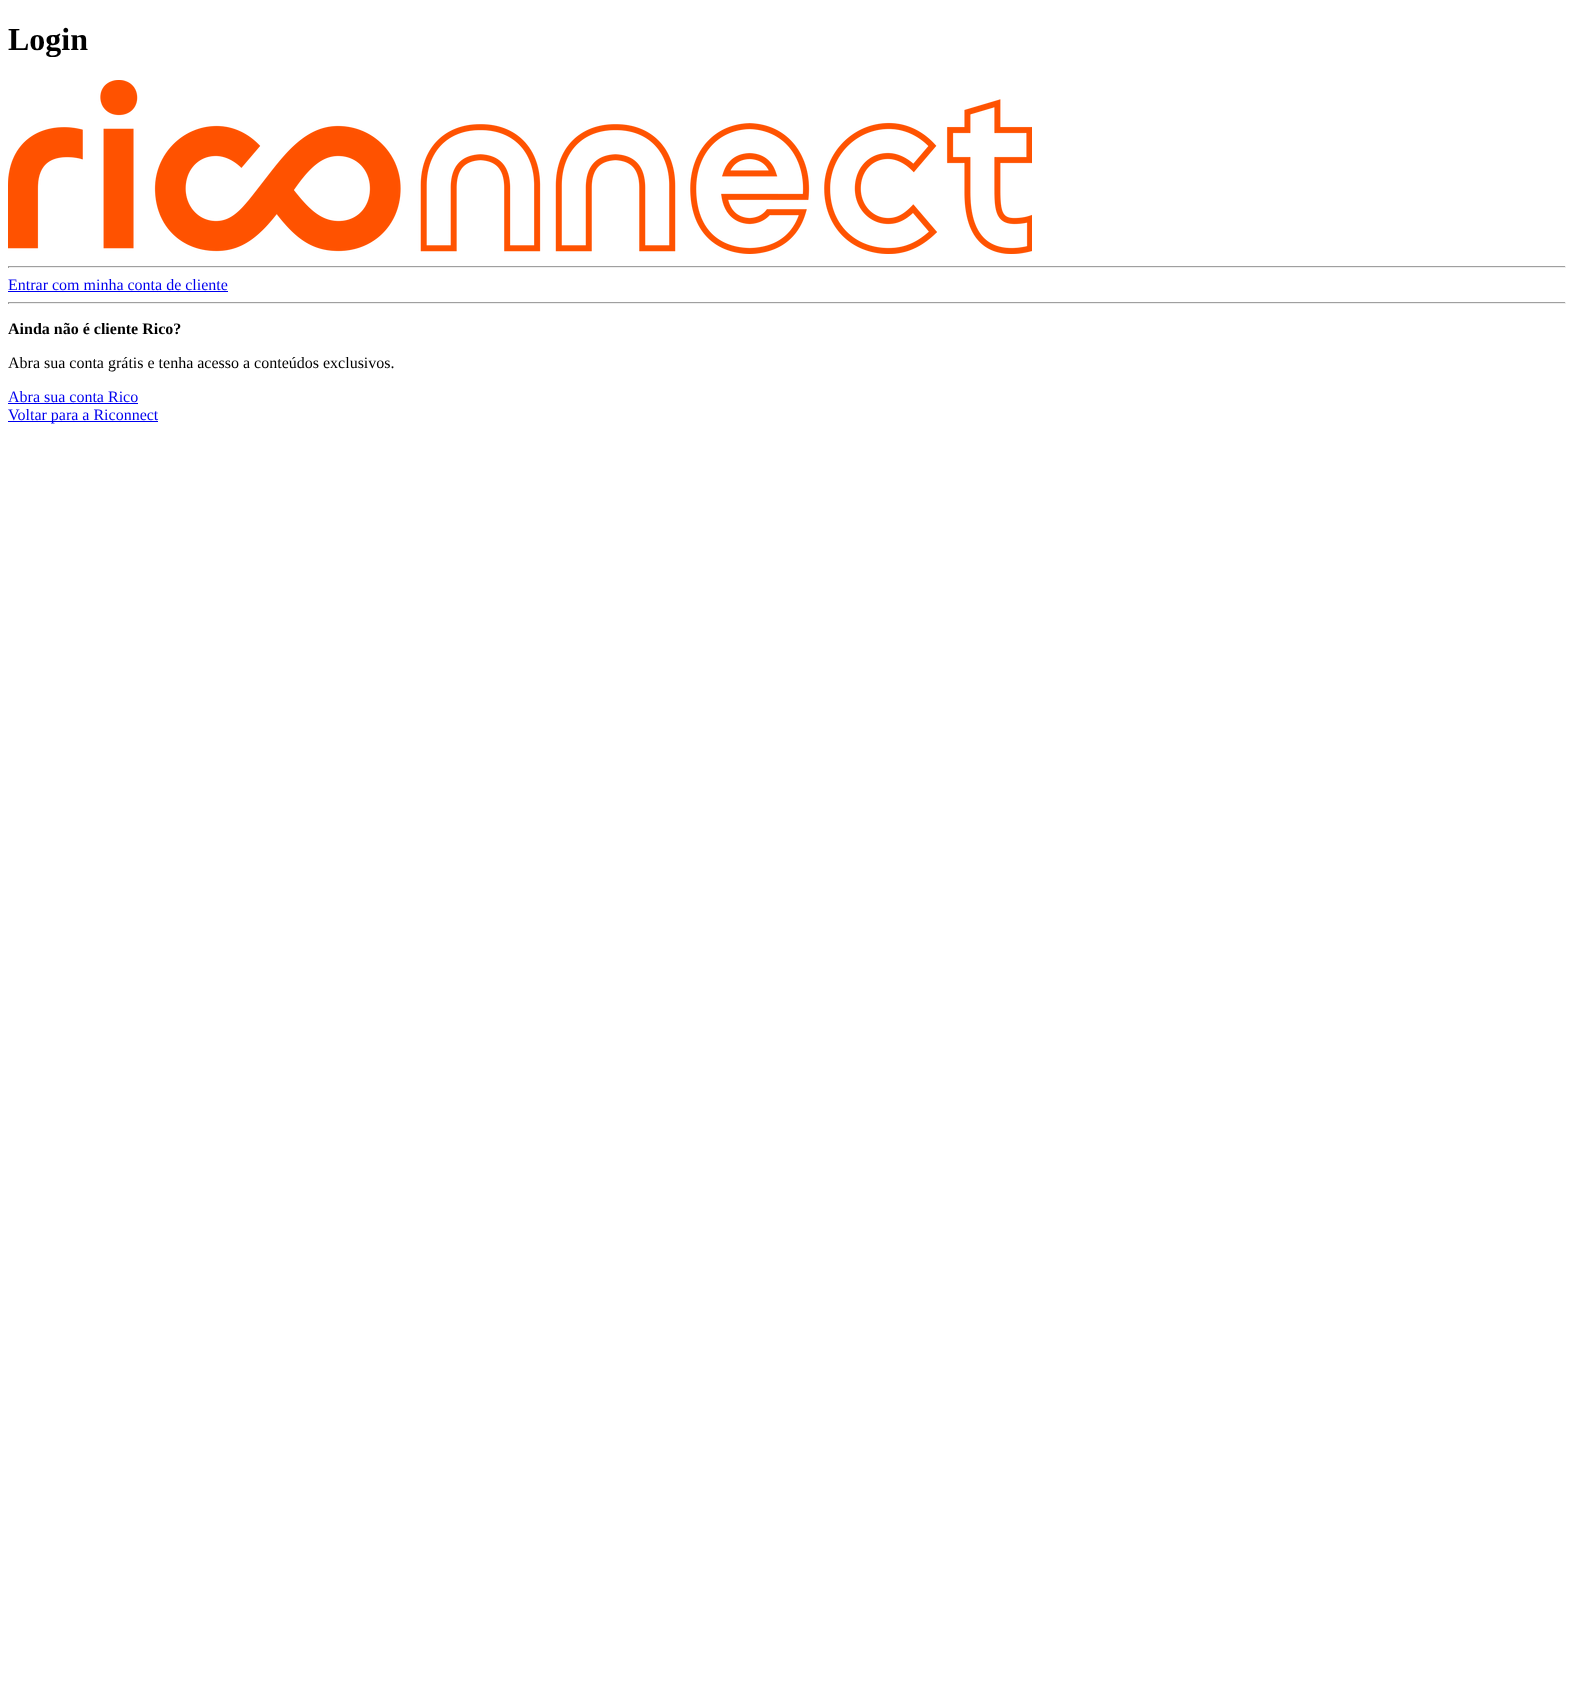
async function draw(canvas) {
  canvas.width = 1574;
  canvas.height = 1684;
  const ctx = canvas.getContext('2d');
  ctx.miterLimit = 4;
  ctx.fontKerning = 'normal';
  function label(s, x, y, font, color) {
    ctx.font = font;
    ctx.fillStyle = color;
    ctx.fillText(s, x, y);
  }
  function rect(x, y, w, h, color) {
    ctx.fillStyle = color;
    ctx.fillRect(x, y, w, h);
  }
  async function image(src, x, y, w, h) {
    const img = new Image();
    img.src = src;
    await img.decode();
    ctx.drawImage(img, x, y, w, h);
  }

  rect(0, 0, 1574, 1684, '#fff');
  label('Login', 8, 50, 'bold 32px Liberation Serif', '#000');
  await image('assets/img1.png', 8, 80, 1024, 174);
  rect(8, 266, 1558, 1, '#9f9f9f');
  rect(1565, 266, 1, 2, '#eee');
  rect(8, 267, 1558, 1, '#eee');
  rect(8, 266, 1, 2, '#9f9f9f');
  label('Entrar com minha conta de cliente', 8, 290, '16px Liberation Serif', '#00e');
  rect(8, 291, 220, 1, '#00e');
  rect(8, 302, 1558, 1, '#9f9f9f');
  rect(1565, 302, 1, 2, '#eee');
  rect(8, 303, 1558, 1, '#eee');
  rect(8, 302, 1, 2, '#9f9f9f');
  label('Ainda não é cliente Rico?', 8, 334, 'bold 16px Liberation Serif', '#000');
  label('Abra sua conta grátis e tenha acesso a conteúdos exclusivos.', 8, 368, '16px Liberation Serif', '#000');
  label('Abra sua conta Rico', 8, 402, '16px Liberation Serif', '#00e');
  rect(8, 403, 130, 1, '#00e');
  rect(8, 421, 150, 1, '#00e');
  label('Voltar para a Riconnect', 8, 420, '16px Liberation Serif', '#00e');
}

draw(document.querySelector('canvas'));
